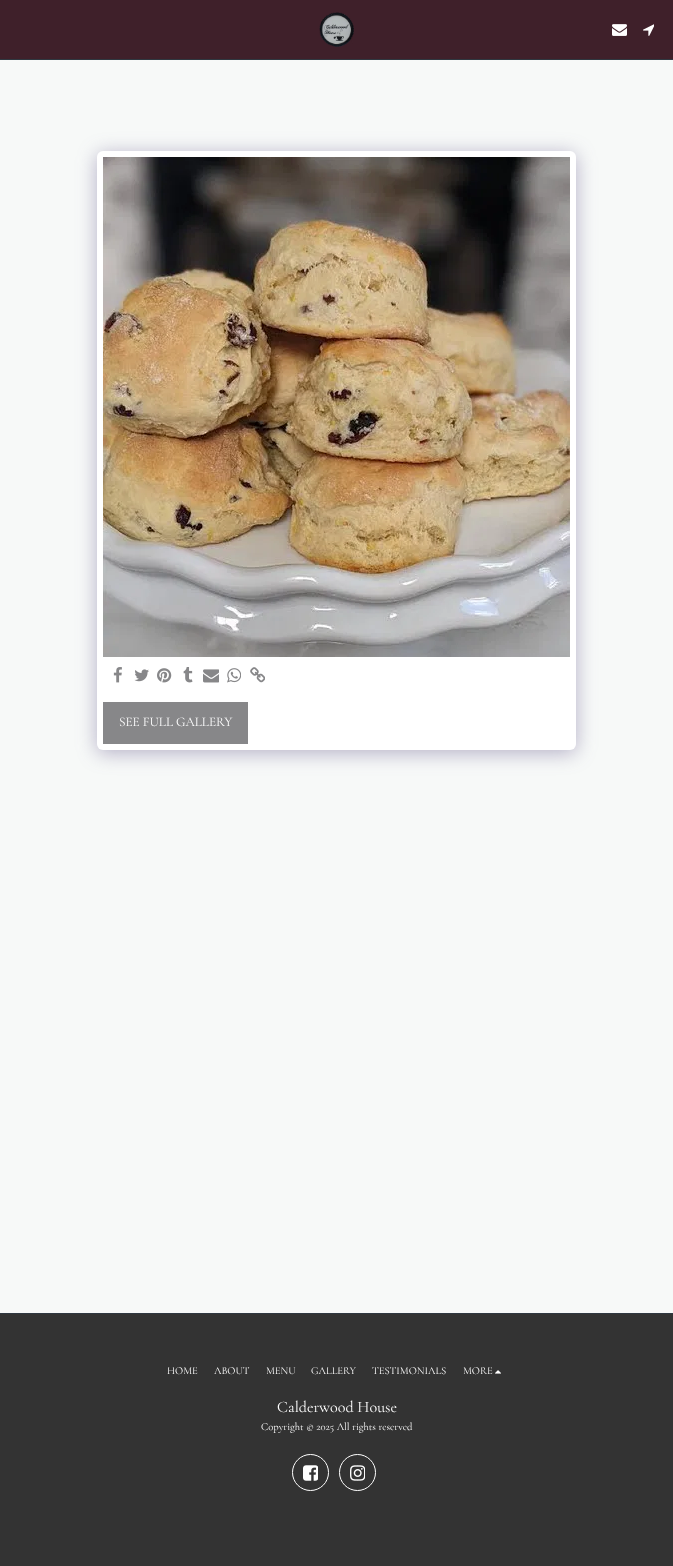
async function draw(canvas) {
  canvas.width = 673;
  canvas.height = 1566;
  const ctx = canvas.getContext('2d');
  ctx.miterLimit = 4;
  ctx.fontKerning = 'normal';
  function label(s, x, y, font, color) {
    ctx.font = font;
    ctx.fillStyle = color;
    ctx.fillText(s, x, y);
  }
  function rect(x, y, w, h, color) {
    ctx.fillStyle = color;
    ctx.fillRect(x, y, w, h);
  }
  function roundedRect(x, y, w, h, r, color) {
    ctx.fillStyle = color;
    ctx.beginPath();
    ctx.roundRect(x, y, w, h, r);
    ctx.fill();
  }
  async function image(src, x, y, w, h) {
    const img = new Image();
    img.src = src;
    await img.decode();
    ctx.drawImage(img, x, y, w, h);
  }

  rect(0, 0, 673, 1566, '#f7f9f8');
  rect(0, 0, 673, 59, '#3f202a');
  rect(0, 59, 673, 1, '#303841');
  await image('assets/img1.png', 319, 12, 35, 35);
  await image('assets/img2.png', 612, 24, 15, 12);
  await image('assets/img3.png', 643, 24, 11, 12);
  ctx.fillStyle = '#4d3f7a66';
  ctx.filter = 'blur(10px)';
  ctx.beginPath();
  ctx.roundRect(97, 154, 479, 599, 6);
  ctx.fill();
  ctx.filter = 'none';
  roundedRect(97, 151, 479, 599, 6, '#fff');
  await image('assets/img4.png', 103, 157, 467, 500);
  await image('assets/img5.png', 113, 667, 9, 16);
  await image('assets/img6.png', 134, 669, 15, 13);
  await image('assets/img7.png', 157, 668, 15, 15);
  await image('assets/img8.png', 183, 667, 10, 16);
  await image('assets/img9.png', 203, 669, 16, 14);
  await image('assets/img10.png', 227, 668, 14, 15);
  await image('assets/img11.png', 250, 667, 15, 16);
  rect(103, 702, 145, 42, '#878789');
  label('SEE FULL GALLERY', 119, 726, '13.25px Cormorant Garamond', '#fff');
  rect(0, 1314, 673, 252, '#333');
  rect(0, 1313, 673, 1, '#303841');
  label('HOME', 167, 1374, '10.6px Cormorant Garamond', '#fff');
  label('ABOUT', 214, 1374, '10.6px Cormorant Garamond', '#fff');
  label('MENU', 266, 1374, '10.6px Cormorant Garamond', '#fff');
  label('GALLERY', 311, 1374, '10.6px Cormorant Garamond', '#fff');
  label('TESTIMONIALS', 372, 1374, '10.6px Cormorant Garamond', '#fff');
  label('MORE', 463, 1374, '10.6px Cormorant Garamond', '#fff');
  await image('assets/img12.png', 495, 1370, 6, 4);
  label('Calderwood House', 277, 1412, '16px Cormorant Garamond', '#fff');
  label('Copyright © 2025 All rights reserved', 261, 1430, '10.6px Cormorant Garamond', '#fff');
  ctx.beginPath();
  ctx.arc(310.5, 1472.5, 18, 0, 2 * Math.PI);
  ctx.strokeStyle = '#fff';
  ctx.stroke();
  await image('assets/img13.png', 303, 1465, 15, 16);
  ctx.beginPath();
  ctx.arc(357.5, 1472.5, 18, 0, 2 * Math.PI);
  ctx.stroke();
  await image('assets/img14.png', 350, 1465, 15, 16);
}

draw(document.querySelector('canvas'));
